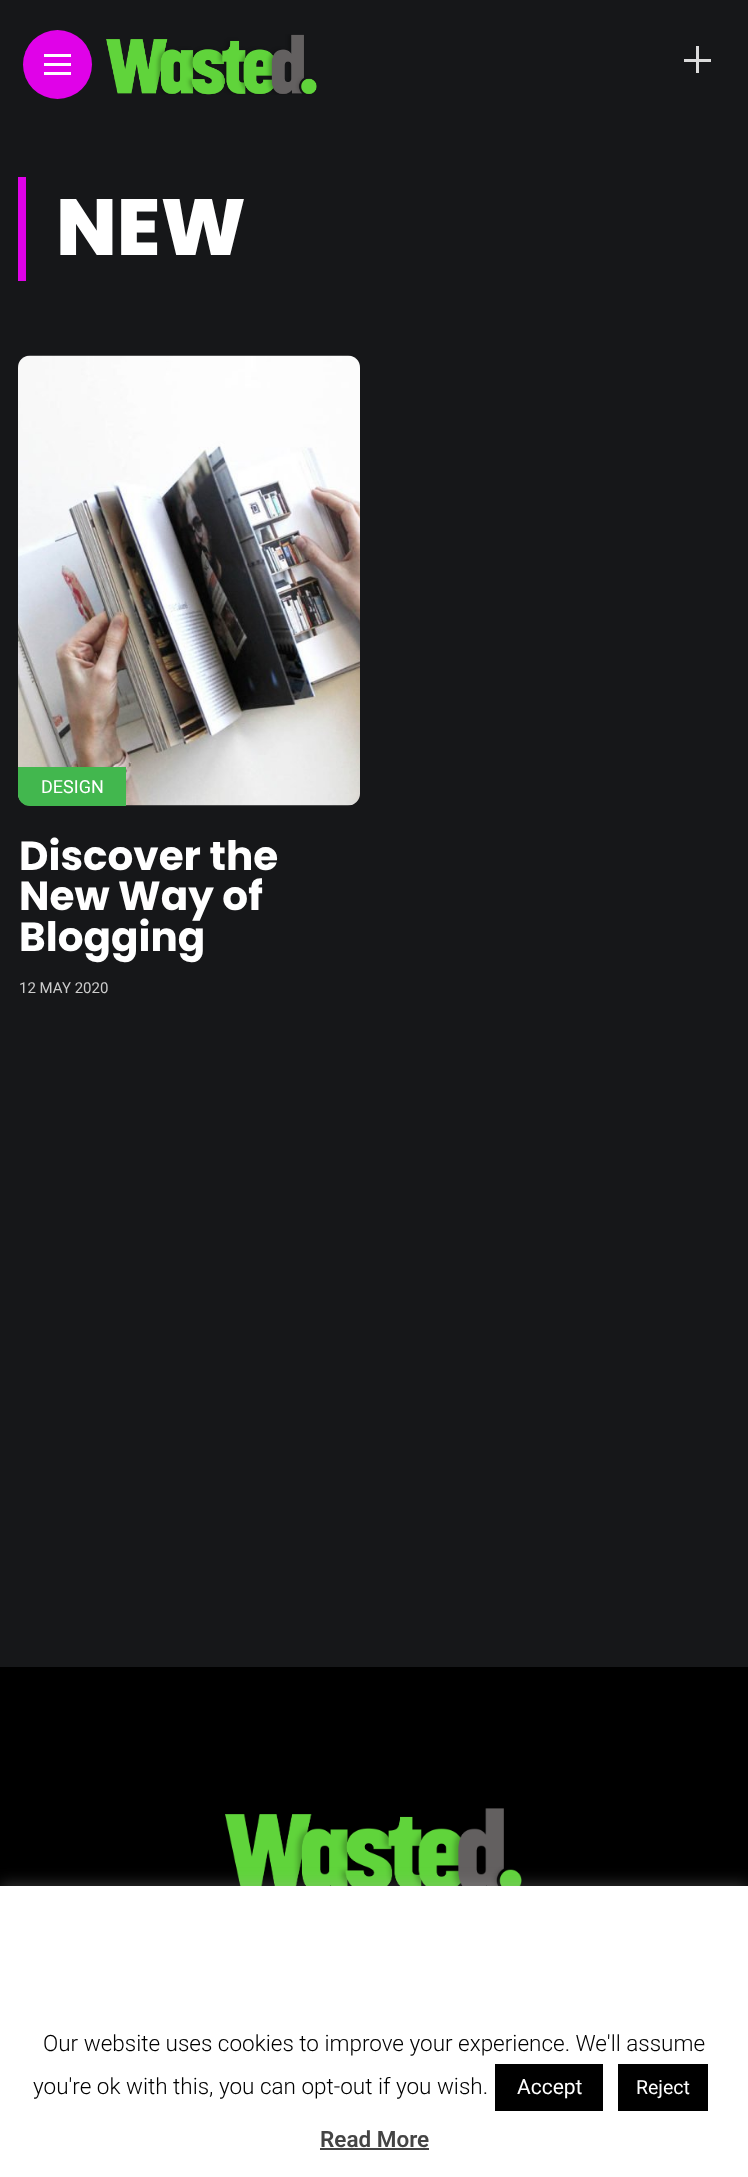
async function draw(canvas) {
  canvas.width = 748;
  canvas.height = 2177;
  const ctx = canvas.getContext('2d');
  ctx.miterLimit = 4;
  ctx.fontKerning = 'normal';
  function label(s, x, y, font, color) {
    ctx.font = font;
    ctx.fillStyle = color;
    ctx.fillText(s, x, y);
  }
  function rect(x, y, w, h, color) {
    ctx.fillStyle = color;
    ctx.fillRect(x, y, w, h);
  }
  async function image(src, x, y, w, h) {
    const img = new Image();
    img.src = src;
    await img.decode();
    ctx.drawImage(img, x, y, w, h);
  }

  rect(0, 0, 748, 2177, '#161719');
  ctx.fillStyle = '#e002e8';
  ctx.beginPath();
  ctx.arc(57.5, 64.5, 34.5, 0, 2 * Math.PI);
  ctx.fill();
  rect(44, 54, 27, 3, '#fff');
  rect(44, 63, 27, 3, '#fff');
  rect(44, 72, 27, 3, '#fff');
  await image('assets/img1.png', 106, 34, 211, 61);
  rect(684, 59, 27, 3, '#dbdbdb');
  rect(696, 46, 3, 27, '#dbdbdb');
  rect(18, 177, 8, 104, '#e002e8');
  label('NEW', 56, 255, '800 79.5px Poppins', '#fff');
  await image('assets/img2.png', 18, 355, 342, 451);
  ctx.fillStyle = '#42b74e';
  ctx.beginPath();
  ctx.roundRect(18, 767, 108, 39, [0, 0, 0, 12]);
  ctx.fill();
  label('DESIGN', 41, 793, '18px Roboto', '#fff');
  label('Discover the', 19, 870, 'bold 40.5px Poppins', '#fff');
  label('New Way of', 19, 910, 'bold 40.5px Poppins', '#fff');
  label('Blogging', 19, 951, 'bold 40.5px Poppins', '#fff');
  label('12 MAY 2020', 19, 993, '15px Roboto', '#ccc');
  rect(0, 1667, 748, 219, '#000');
  await image('assets/img3.png', 225, 1808, 297, 78);
  ctx.fillStyle = '#acabab4d';
  ctx.filter = 'blur(7.5px)';
  ctx.beginPath();
  ctx.rect(0, 1884, 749, 293);
  ctx.fill();
  ctx.filter = 'none';
  rect(0, 1886, 748, 291, '#fff');
  label('Our website uses cookies to improve your experience. We\'ll assume', 43, 2051, '300 22.5px Roboto', '#000');
  label('you\'re ok with this, you can opt-out if you wish.', 33, 2094, '300 22.5px Roboto', '#000');
  rect(495, 2064, 108, 47, '#000');
  label('Accept', 517, 2094, '21px Roboto', '#fff');
  rect(618, 2064, 90, 47, '#000');
  label('Reject', 636, 2094, '19.5px Roboto', '#fff');
  label('Read More', 320, 2147, '600 22.5px Roboto', '#444');
  rect(320, 2148, 109, 2, '#444');
}

draw(document.querySelector('canvas'));
